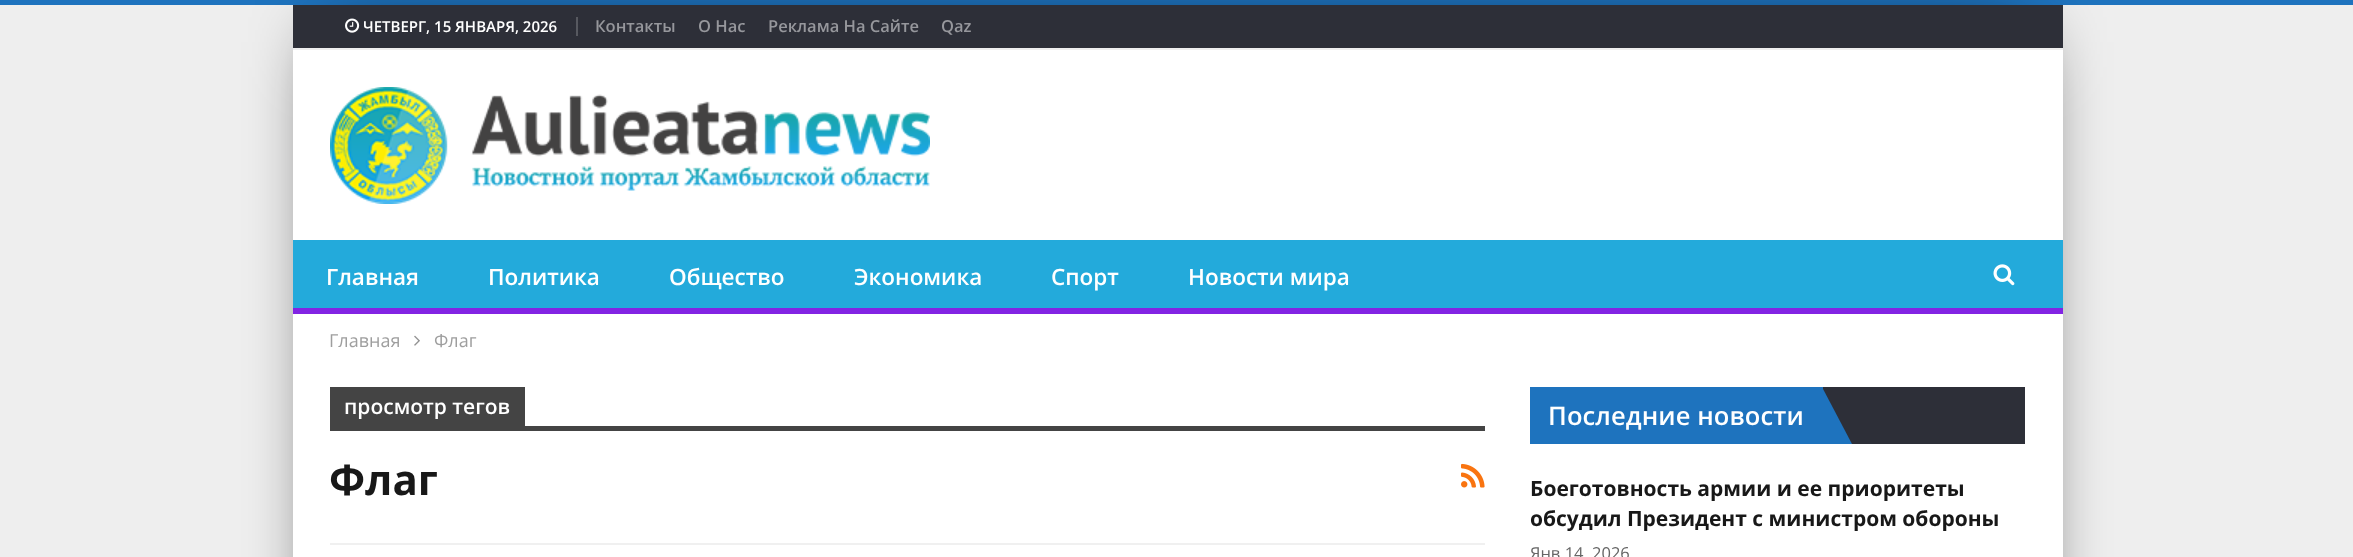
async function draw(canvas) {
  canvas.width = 2353;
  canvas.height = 557;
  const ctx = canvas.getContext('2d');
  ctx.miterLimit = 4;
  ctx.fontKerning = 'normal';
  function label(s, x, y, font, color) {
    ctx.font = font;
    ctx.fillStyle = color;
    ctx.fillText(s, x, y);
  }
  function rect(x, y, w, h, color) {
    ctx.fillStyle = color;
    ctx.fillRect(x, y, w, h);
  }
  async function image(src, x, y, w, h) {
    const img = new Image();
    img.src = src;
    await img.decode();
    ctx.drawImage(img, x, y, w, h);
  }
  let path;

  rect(0, 0, 2353, 557, '#eee');
  rect(0, 0, 2353, 5, '#1e73be');
  ctx.fillStyle = '#000';
  ctx.filter = 'blur(37.5px)';
  ctx.beginPath();
  ctx.rect(330, 42, 1695, 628);
  ctx.fill();
  ctx.filter = 'none';
  rect(293, 50, 1770, 507, '#fff');
  rect(293, 5, 1770, 43, '#2d2f38');
  rect(293, 48, 1770, 2, '#efefef');
  await image('assets/img1.png', 345, 18, 15, 15);
  label('ЧЕТВЕРГ, 15 ЯНВАРЯ, 2026', 363, 32, '600 15px Open Sans', '#fff');
  rect(576, 17, 2, 19, '#575960');
  label('Контакты', 595, 32, '600 16.5px Open Sans', '#96979c');
  label('О Нас', 698, 32, '600 16.5px Open Sans', '#96979c');
  label('Реклама На Сайте', 768, 32, '600 16.5px Open Sans', '#96979c');
  label('Qaz', 941, 32, '600 16.5px Open Sans', '#96979c');
  await image('assets/img2.png', 330, 87, 600, 117);
  rect(293, 240, 1770, 68, '#23aadb');
  rect(293, 308, 1770, 6, '#8224e3');
  label('Главная', 326, 285, '600 22.5px Open Sans', '#fff');
  label('Политика', 488, 285, '600 22.5px Open Sans', '#fff');
  label('Общество', 669, 285, '600 22.5px Open Sans', '#fff');
  label('Экономика', 854, 285, '600 22.5px Open Sans', '#fff');
  label('Спорт', 1051, 285, '600 22.5px Open Sans', '#fff');
  label('Новости мира', 1188, 285, '600 22.5px Open Sans', '#fff');
  await image('assets/img3.png', 1993, 264, 22, 22);
  label('Главная', 329, 347, '18px Open Sans', '#9e9e9e');
  await image('assets/img4.png', 414, 335, 6, 11);
  label('Флаг', 434, 347, '18px Open Sans', '#9e9e9e');
  rect(330, 543, 1155, 2, '#f0f0f0');
  rect(330, 387, 195, 39, '#444');
  label('просмотр тегов', 344, 414, '600 21px Open Sans', '#fff');
  rect(330, 426, 1155, 5, '#444');
  ctx.letterSpacing = '0.1px';
  label('Флаг', 329, 495, 'bold 42px Open Sans', '#181818');
  await image('assets/img5.png', 1461, 463, 24, 25);
  rect(1823, 387, 202, 57, '#2d2f38');
  rect(1530, 387, 293, 57, '#1e73be');
  label('Последние новости', 1548, 425, '600 25.5px Open Sans', '#fff');
  ctx.fillStyle = '#1e73be';
  path = new Path2D('M1852 444H1822V387Z');
  ctx.fill(path);
  ctx.letterSpacing = '0px';
  label('Боеготовность армии и ее приоритеты', 1530, 496, 'bold 21px Open Sans', '#181818');
  label('обсудил Президент с министром обороны', 1530, 526, 'bold 21px Open Sans', '#181818');
  label('Янв 14, 2026', 1530, 559, '16.5px Open Sans', '#666');
}

draw(document.querySelector('canvas'));
